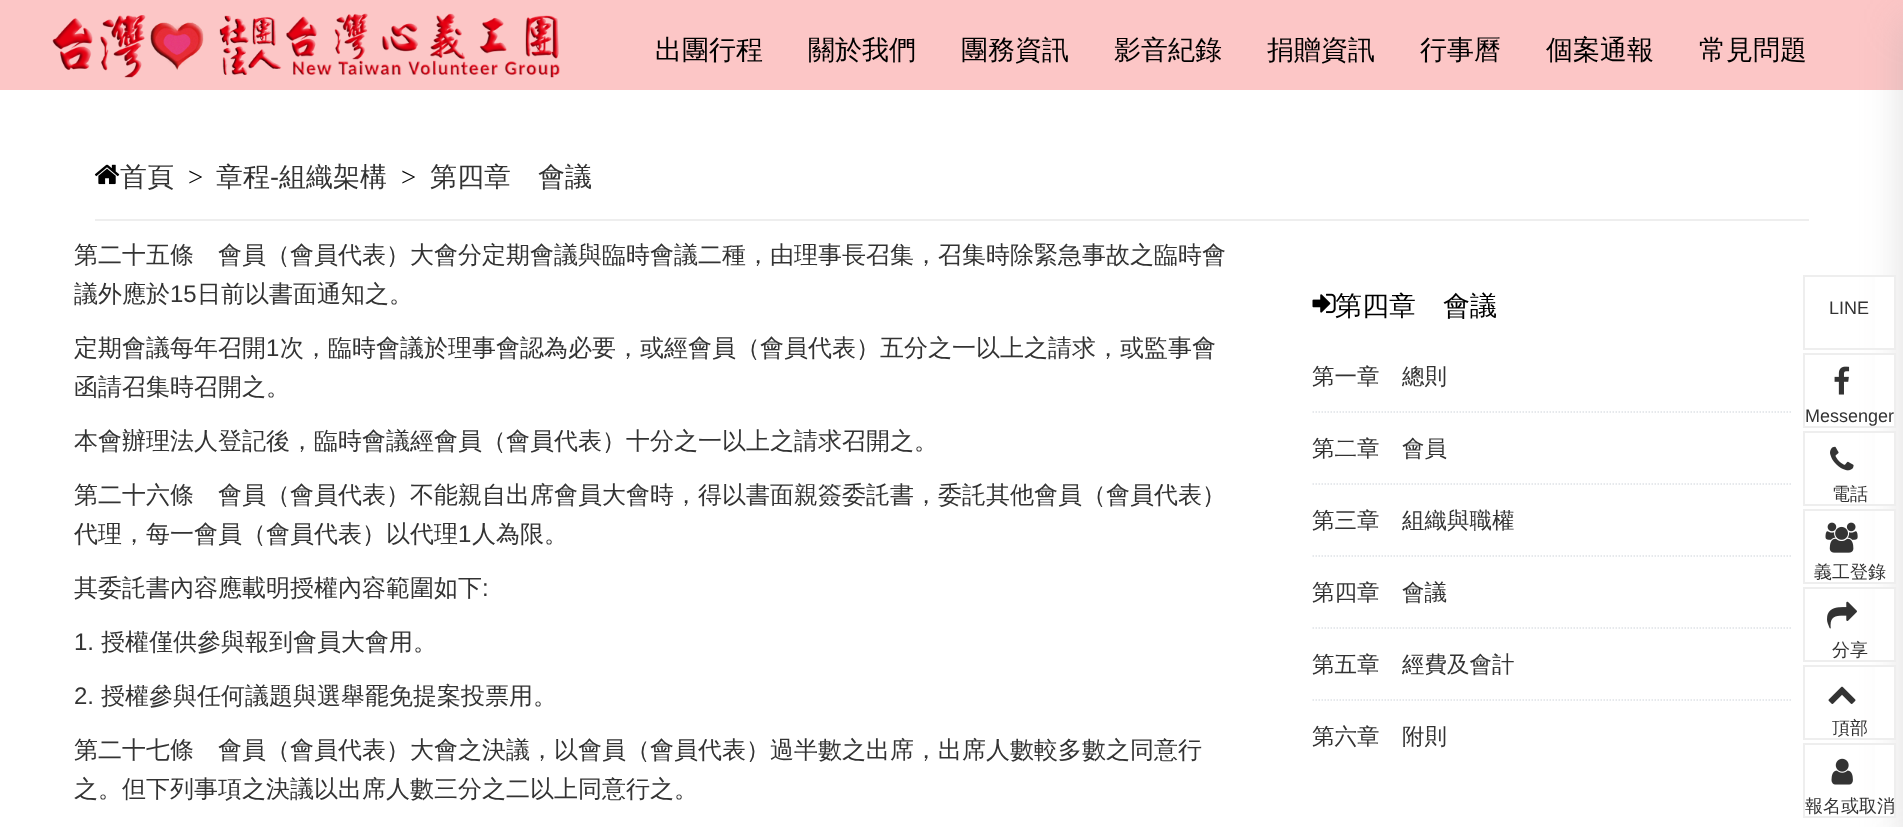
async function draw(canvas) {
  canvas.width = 1903;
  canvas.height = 827;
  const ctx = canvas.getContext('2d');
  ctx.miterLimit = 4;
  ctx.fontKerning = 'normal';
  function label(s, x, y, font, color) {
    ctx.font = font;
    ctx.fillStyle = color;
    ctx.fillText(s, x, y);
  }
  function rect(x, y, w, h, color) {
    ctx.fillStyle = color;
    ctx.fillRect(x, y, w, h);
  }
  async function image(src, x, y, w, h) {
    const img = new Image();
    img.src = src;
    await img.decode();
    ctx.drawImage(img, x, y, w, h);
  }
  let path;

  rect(0, 0, 1903, 827, '#fff');
  rect(0, 0, 1903, 90, '#fcc6c6');
  await image('assets/img1.png', 52, 13, 508, 65);
  label('出團行程', 655, 59, '500 27px WenQuanYi Zen Hei', '#000');
  label('關於我們', 808, 59, '500 27px WenQuanYi Zen Hei', '#000');
  label('團務資訊', 961, 59, '500 27px WenQuanYi Zen Hei', '#000');
  label('影音紀錄', 1114, 59, '500 27px WenQuanYi Zen Hei', '#000');
  label('捐贈資訊', 1267, 59, '500 27px WenQuanYi Zen Hei', '#000');
  label('行事曆', 1420, 59, '500 27px WenQuanYi Zen Hei', '#000');
  label('個案通報', 1546, 59, '500 27px WenQuanYi Zen Hei', '#000');
  label('常見問題', 1699, 59, '500 27px WenQuanYi Zen Hei', '#000');
  ctx.fillStyle = '#a7a5a561';
  ctx.filter = 'blur(20px)';
  ctx.beginPath();
  ctx.rect(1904, 23, 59, 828);
  ctx.fill();
  ctx.filter = 'none';
  await image('assets/img2.png', 94, 164, 26, 21);
  label('首頁', 120, 186, '500 27px WenQuanYi Zen Hei', '#333');
  label('>', 188, 186, '27px Liberation Serif', '#000');
  label('章程', 216, 186, '500 27px WenQuanYi Zen Hei', '#333');
  label('-', 270, 186, '27px Liberation Sans', '#333');
  label('組織架構', 279, 186, '500 27px WenQuanYi Zen Hei', '#333');
  label('>', 401, 186, '27px Liberation Serif', '#000');
  label('第四章　會議', 430, 186, '500 27px WenQuanYi Zen Hei', '#333');
  rect(95, 219, 1714, 2, '#eee');
  label('第二十五條　會員（會員代表）大會分定期會議與臨時會議二種，由理事長召集，召集時除緊急事故之臨時會', 74, 263, '500 24px WenQuanYi Zen Hei', '#333');
  label('議外應於', 74, 302, '500 24px WenQuanYi Zen Hei', '#333');
  label('15', 170, 302, '24px Liberation Sans', '#333');
  label('日前以書面通知之。', 197, 302, '500 24px WenQuanYi Zen Hei', '#333');
  label('定期會議每年召開', 74, 356, '500 24px WenQuanYi Zen Hei', '#333');
  label('1', 266, 356, '24px Liberation Sans', '#333');
  label('次，臨時會議於理事會認為必要，或經會員（會員代表）五分之一以上之請求，或監事會', 280, 356, '500 24px WenQuanYi Zen Hei', '#333');
  label('函請召集時召開之。', 74, 395, '500 24px WenQuanYi Zen Hei', '#333');
  label('本會辦理法人登記後，臨時會議經會員（會員代表）十分之一以上之請求召開之。', 74, 449, '500 24px WenQuanYi Zen Hei', '#333');
  label('第二十六條　會員（會員代表）不能親自出席會員大會時，得以書面親簽委託書，委託其他會員（會員代表）', 74, 503, '500 24px WenQuanYi Zen Hei', '#333');
  label('代理，每一會員（會員代表）以代理', 74, 542, '500 24px WenQuanYi Zen Hei', '#333');
  label('1', 458, 542, '24px Liberation Sans', '#333');
  label('人為限。', 472, 542, '500 24px WenQuanYi Zen Hei', '#333');
  label('其委託書內容應載明授權內容範圍如下', 74, 596, '500 24px WenQuanYi Zen Hei', '#333');
  label(':', 482, 596, '24px Liberation Sans', '#333');
  label('1.', 74, 650, '24px Liberation Sans', '#333');
  label('授權僅供參與報到會員大會用。', 101, 650, '500 24px WenQuanYi Zen Hei', '#333');
  label('2.', 74, 704, '24px Liberation Sans', '#333');
  label('授權參與任何議題與選舉罷免提案投票用。', 101, 704, '500 24px WenQuanYi Zen Hei', '#333');
  label('第二十七條　會員（會員代表）大會之決議，以會員（會員代表）過半數之出席，出席人數較多數之同意行', 74, 758, '500 24px WenQuanYi Zen Hei', '#333');
  label('之。但下列事項之決議以出席人數三分之二以上同意行之。', 74, 797, '500 24px WenQuanYi Zen Hei', '#333');
  await image('assets/img3.png', 1312, 293, 24, 21);
  label('第四章　會議', 1335, 315, '500 27px WenQuanYi Zen Hei', '#000');
  path = new Path2D('M1312.5 412H1791');
  ctx.strokeStyle = '#dee2e6';
  ctx.lineWidth = 1.5;
  ctx.setLineDash([1.5, 1.5]);
  ctx.stroke(path);
  label('第一章　總則', 1312, 384, '500 22.5px WenQuanYi Zen Hei', '#333');
  path = new Path2D('M1312.5 484H1791');
  ctx.stroke(path);
  label('第二章　會員', 1312, 456, '500 22.5px WenQuanYi Zen Hei', '#333');
  path = new Path2D('M1312.5 556H1791');
  ctx.stroke(path);
  label('第三章　組織與職權', 1312, 528, '500 22.5px WenQuanYi Zen Hei', '#333');
  path = new Path2D('M1312.5 628H1791');
  ctx.stroke(path);
  label('第四章　會議', 1312, 600, '500 22.5px WenQuanYi Zen Hei', '#333');
  path = new Path2D('M1312.5 700H1791');
  ctx.stroke(path);
  label('第五章　經費及會計', 1312, 672, '500 22.5px WenQuanYi Zen Hei', '#333');
  label('第六章　附則', 1312, 744, '500 22.5px WenQuanYi Zen Hei', '#333');
  rect(1875, 277, 19, 71, '#fff');
  ctx.strokeStyle = '#eee';
  ctx.lineWidth = 2;
  ctx.setLineDash([]);
  ctx.strokeRect(1804, 276, 91, 73);
  label('LINE', 1829, 314, '18px Liberation Sans', '#333');
  rect(1875, 355, 19, 71, '#fff');
  ctx.strokeRect(1804, 354, 91, 73);
  await image('assets/img4.png', 1834, 366, 16, 29);
  label('Messenger', 1805, 422, '18px Liberation Sans', '#333');
  rect(1875, 433, 19, 71, '#fff');
  ctx.strokeRect(1804, 432, 91, 73);
  await image('assets/img5.png', 1830, 446, 24, 25);
  label('電話', 1832, 500, '500 18px WenQuanYi Zen Hei', '#333');
  rect(1875, 511, 19, 71, '#fff');
  ctx.strokeRect(1804, 510, 91, 73);
  await image('assets/img6.png', 1825, 522, 33, 31);
  label('義工登錄', 1814, 578, '500 18px WenQuanYi Zen Hei', '#333');
  rect(1875, 589, 19, 71, '#fff');
  ctx.strokeRect(1804, 588, 91, 73);
  await image('assets/img7.png', 1827, 601, 30, 28);
  label('分享', 1832, 656, '500 18px WenQuanYi Zen Hei', '#333');
  rect(1875, 667, 19, 71, '#fff');
  ctx.strokeRect(1804, 666, 91, 73);
  await image('assets/img8.png', 1828, 686, 28, 18);
  label('頂部', 1832, 734, '500 18px WenQuanYi Zen Hei', '#333');
  rect(1875, 745, 19, 71, '#fff');
  ctx.strokeRect(1804, 744, 91, 73);
  await image('assets/img9.png', 1831, 758, 22, 27);
  label('報名或取消', 1805, 812, '500 18px WenQuanYi Zen Hei', '#333');
}

draw(document.querySelector('canvas'));
